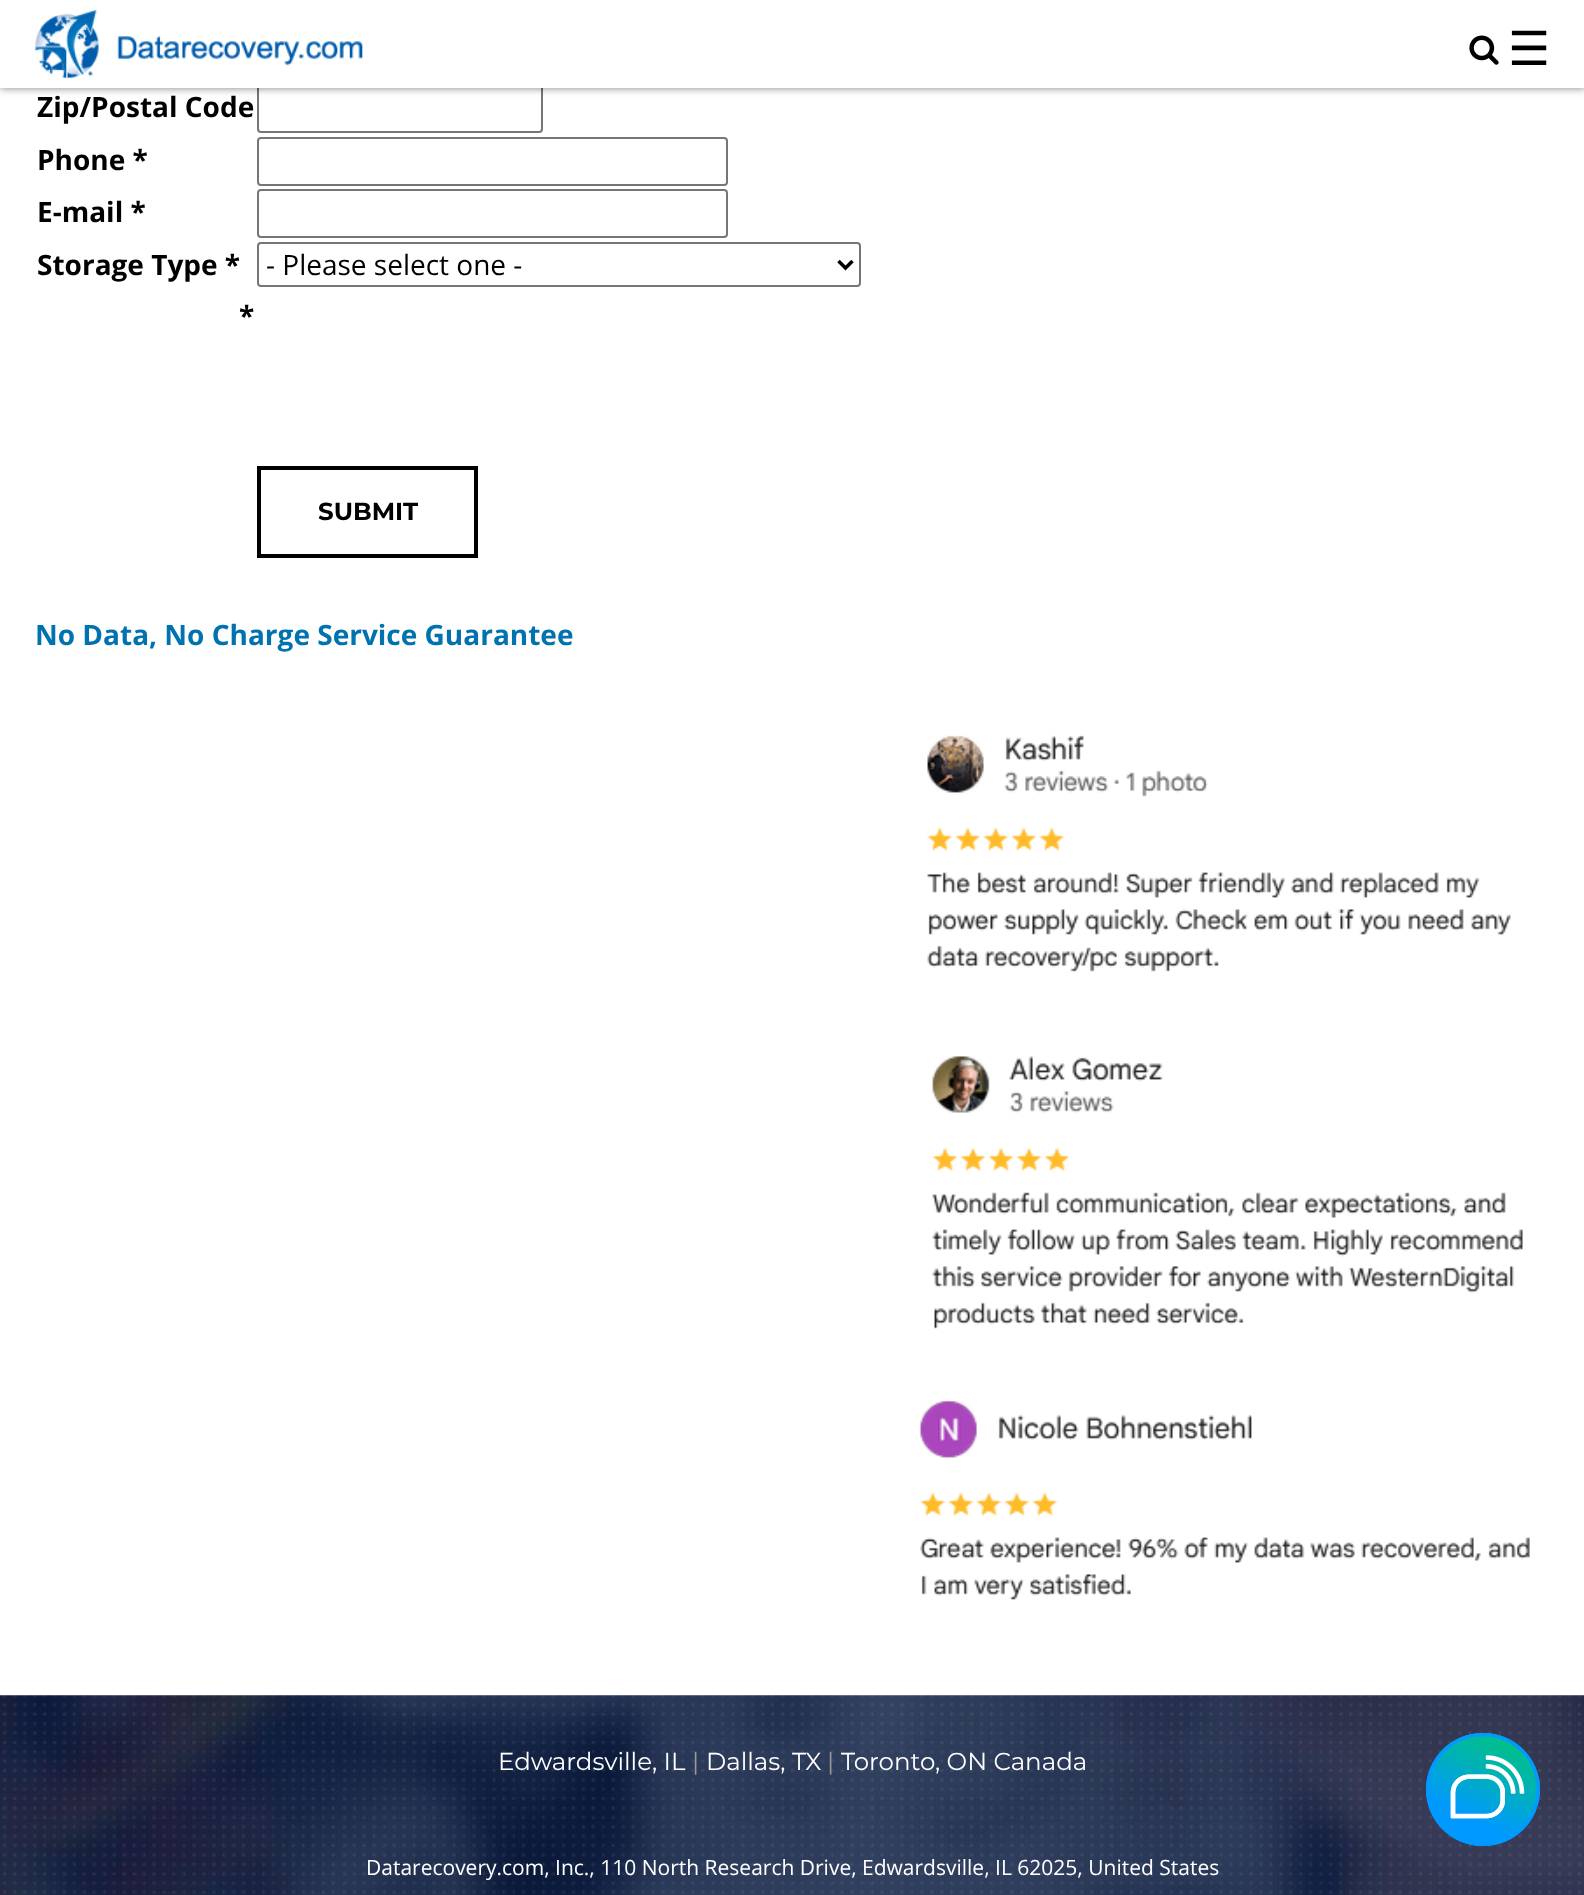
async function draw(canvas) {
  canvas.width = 1584;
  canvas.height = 1895;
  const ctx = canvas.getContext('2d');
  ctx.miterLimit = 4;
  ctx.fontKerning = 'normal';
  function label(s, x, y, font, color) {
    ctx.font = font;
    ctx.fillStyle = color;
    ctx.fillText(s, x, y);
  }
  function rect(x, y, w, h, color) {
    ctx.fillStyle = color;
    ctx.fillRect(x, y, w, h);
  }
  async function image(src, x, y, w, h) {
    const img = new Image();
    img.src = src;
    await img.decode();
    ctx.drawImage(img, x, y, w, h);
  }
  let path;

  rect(0, 0, 1584, 1895, '#fff');
  ctx.beginPath();
  ctx.roundRect(258, 85, 284, 47, 3);
  ctx.strokeStyle = '#767676';
  ctx.lineWidth = 2;
  ctx.stroke();
  ctx.fillStyle = '#00000080';
  ctx.filter = 'blur(4.5px)';
  ctx.beginPath();
  ctx.rect(0, 0, 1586, 88);
  ctx.fill();
  ctx.filter = 'none';
  rect(0, 0, 1584, 88, '#fff');
  await image('assets/img1.png', 35, 9, 328, 70);
  await image('assets/img2.png', 1469, 35, 30, 30);
  label('☰', 1508, 65, '47px DejaVu Sans', '#000');
  label('Zip/Postal Code', 37, 117, 'bold 28px Open Sans', '#000');
  label('Phone *', 37, 170, 'bold 28px Open Sans', '#000');
  ctx.beginPath();
  ctx.roundRect(258, 138, 469, 47, 3);
  ctx.stroke();
  label('E-mail *', 37, 222, 'bold 28px Open Sans', '#000');
  ctx.beginPath();
  ctx.roundRect(258, 190, 469, 47, 3);
  ctx.stroke();
  label('Storage Type *', 37, 275, 'bold 28px Open Sans', '#000');
  ctx.beginPath();
  ctx.roundRect(258, 243, 602, 43, 3);
  ctx.stroke();
  path = new Path2D('M838.5 261L845.5 268L852.5 261');
  ctx.strokeStyle = '#000';
  ctx.lineWidth = 3.5;
  ctx.stroke(path);
  label('- Please select one -', 266, 275, '28px Open Sans', '#000');
  label('*', 239, 326, 'bold 28px Open Sans', '#000');
  ctx.lineWidth = 4;
  ctx.strokeRect(259, 468, 217, 88);
  label('SUBMIT', 318, 520, 'bold 24.5px Montserrat', '#000');
  label('No Data, No Charge Service Guarantee', 35, 645, 'bold 28px Open Sans', '#0072af');
  await image('assets/img3.png', 927, 735, 584, 237);
  await image('assets/img4.png', 932, 1056, 591, 273);
  await image('assets/img5.png', 920, 1400, 610, 200);
  await image('assets/img6.png', 0, 1695, 1584, 200);
  await image('assets/img7.png', 2, 1695, 1580, 199);
  label('Edwardsville, IL', 498, 1770, '24.5px Montserrat', '#fff');
  label('|', 692, 1770, '24.5px Montserrat', '#999');
  label('Dallas, TX', 706, 1770, '24.5px Montserrat', '#fff');
  label('|', 827, 1770, '24.5px Montserrat', '#999');
  label('Toronto, ON Canada', 841, 1770, '24.5px Montserrat', '#fff');
  label('Datarecovery.com, Inc., 110 North Research Drive, Edwardsville, IL 62025, United States', 366, 1875, '21px Open Sans', '#fff');
  await image('assets/img8.png', 1426, 1733, 114, 113);
}

draw(document.querySelector('canvas'));
